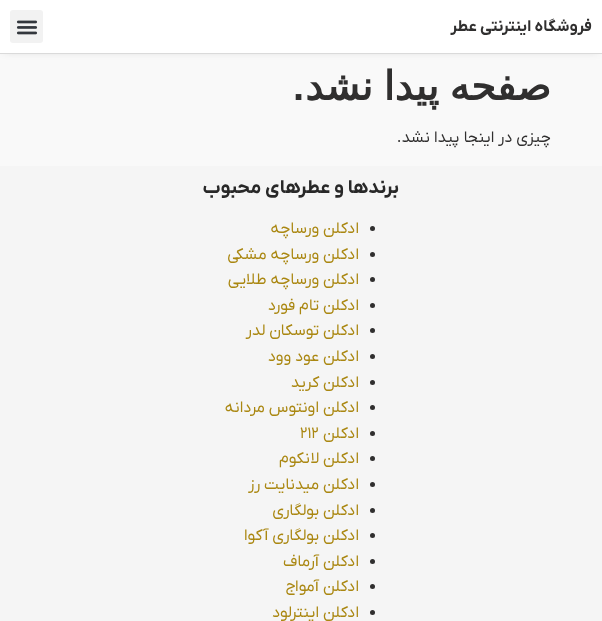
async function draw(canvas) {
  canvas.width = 602;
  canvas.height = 621;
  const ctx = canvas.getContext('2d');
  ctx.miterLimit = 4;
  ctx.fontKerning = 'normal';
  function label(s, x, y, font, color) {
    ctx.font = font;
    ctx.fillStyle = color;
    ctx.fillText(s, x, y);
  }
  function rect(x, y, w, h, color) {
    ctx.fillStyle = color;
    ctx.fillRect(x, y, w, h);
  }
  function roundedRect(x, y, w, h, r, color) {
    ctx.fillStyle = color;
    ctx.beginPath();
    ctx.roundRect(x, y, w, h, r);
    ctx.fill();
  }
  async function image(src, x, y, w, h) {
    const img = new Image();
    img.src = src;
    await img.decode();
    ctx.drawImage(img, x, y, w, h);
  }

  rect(0, 0, 602, 621, '#f9f9f9');
  ctx.fillStyle = '#00000036';
  ctx.filter = 'blur(5px)';
  ctx.beginPath();
  ctx.rect(4, 4, 594, 46);
  ctx.fill();
  ctx.filter = 'none';
  rect(0, 0, 602, 53, '#fff');
  rect(0, 53, 602, 1, '#dadada');
  ctx.direction = 'rtl';
  label('فروشگاه اینترنتی عطر', 592, 31, 'bold 16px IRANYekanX', '#302f2f');
  roundedRect(10, 10, 33, 33, 3, '#f2f2f2');
  await image('assets/img1.png', 16, 20, 22, 15);
  ctx.wordSpacing = '-2px';
  label('صفحه پیدا نشد', 551, 100, 'bold 40px DejaVu Sans', '#302f2f');
  ctx.wordSpacing = '0px';
  label('.', 304, 100, 'bold 40px Liberation Sans', '#302f2f');
  label('چیزی در اینجا پیدا نشد.', 551, 142, '16px IRANYekanX', '#302f2f');
  rect(0, 166, 602, 455, '#f5f5f5');
  label('برندها و عطرهای محبوب', 399, 193, 'bold 19.25px IRANYekanX', '#282828');
  ctx.fillStyle = '#302f2f';
  ctx.beginPath();
  ctx.arc(372.5, 228.5, 2.5, 0, 2 * Math.PI);
  ctx.fill();
  label('ادکلن ورساچه', 359, 233, '16px IRANYekanX', '#aa8711');
  ctx.fillStyle = '#302f2f';
  ctx.beginPath();
  ctx.arc(372.5, 254.5, 2.5, 0, 2 * Math.PI);
  ctx.fill();
  label('ادکلن ورساچه مشکی', 359, 259, '16px IRANYekanX', '#aa8711');
  ctx.fillStyle = '#302f2f';
  ctx.beginPath();
  ctx.arc(372.5, 279.5, 2.5, 0, 2 * Math.PI);
  ctx.fill();
  label('ادکلن ورساچه طلایی', 359, 284, '16px IRANYekanX', '#aa8711');
  ctx.fillStyle = '#302f2f';
  ctx.beginPath();
  ctx.arc(372.5, 305.5, 2.5, 0, 2 * Math.PI);
  ctx.fill();
  label('ادکلن تام فورد', 359, 310, '16px IRANYekanX', '#aa8711');
  ctx.fillStyle = '#302f2f';
  ctx.beginPath();
  ctx.arc(372.5, 330.5, 2.5, 0, 2 * Math.PI);
  ctx.fill();
  label('ادکلن توسکان لدر', 359, 335, '16px IRANYekanX', '#aa8711');
  ctx.fillStyle = '#302f2f';
  ctx.beginPath();
  ctx.arc(372.5, 356.5, 2.5, 0, 2 * Math.PI);
  ctx.fill();
  label('ادکلن عود وود', 359, 361, '16px IRANYekanX', '#aa8711');
  ctx.fillStyle = '#302f2f';
  ctx.beginPath();
  ctx.arc(372.5, 382.5, 2.5, 0, 2 * Math.PI);
  ctx.fill();
  label('ادکلن کرید', 359, 387, '16px IRANYekanX', '#aa8711');
  ctx.fillStyle = '#302f2f';
  ctx.beginPath();
  ctx.arc(372.5, 407.5, 2.5, 0, 2 * Math.PI);
  ctx.fill();
  label('ادکلن اونتوس مردانه', 359, 412, '16px IRANYekanX', '#aa8711');
  ctx.fillStyle = '#302f2f';
  ctx.beginPath();
  ctx.arc(372.5, 433.5, 2.5, 0, 2 * Math.PI);
  ctx.fill();
  label('ادکلن', 359, 438, '16px IRANYekanX', '#aa8711');
  ctx.direction = 'ltr';
  label('۲۱۲', 300, 438, '16px IRANYekanX', '#aa8711');
  ctx.fillStyle = '#302f2f';
  ctx.beginPath();
  ctx.arc(372.5, 458.5, 2.5, 0, 2 * Math.PI);
  ctx.fill();
  ctx.direction = 'rtl';
  label('ادکلن لانکوم', 359, 463, '16px IRANYekanX', '#aa8711');
  ctx.fillStyle = '#302f2f';
  ctx.beginPath();
  ctx.arc(372.5, 484.5, 2.5, 0, 2 * Math.PI);
  ctx.fill();
  label('ادکلن میدنایت رز', 359, 489, '16px IRANYekanX', '#aa8711');
  ctx.fillStyle = '#302f2f';
  ctx.beginPath();
  ctx.arc(372.5, 510.5, 2.5, 0, 2 * Math.PI);
  ctx.fill();
  label('ادکلن بولگاری', 359, 515, '16px IRANYekanX', '#aa8711');
  ctx.fillStyle = '#302f2f';
  ctx.beginPath();
  ctx.arc(372.5, 535.5, 2.5, 0, 2 * Math.PI);
  ctx.fill();
  label('ادکلن بولگاری آکوا', 359, 540, '16px IRANYekanX', '#aa8711');
  ctx.fillStyle = '#302f2f';
  ctx.beginPath();
  ctx.arc(372.5, 561.5, 2.5, 0, 2 * Math.PI);
  ctx.fill();
  label('ادکلن آرماف', 359, 566, '16px IRANYekanX', '#aa8711');
  ctx.fillStyle = '#302f2f';
  ctx.beginPath();
  ctx.arc(372.5, 586.5, 2.5, 0, 2 * Math.PI);
  ctx.fill();
  label('ادکلن آمواج', 359, 591, '16px IRANYekanX', '#aa8711');
  ctx.fillStyle = '#302f2f';
  ctx.beginPath();
  ctx.arc(372.5, 612.5, 2.5, 0, 2 * Math.PI);
  ctx.fill();
  label('ادکلن اینترلود', 359, 617, '16px IRANYekanX', '#aa8711');
}

draw(document.querySelector('canvas'));
